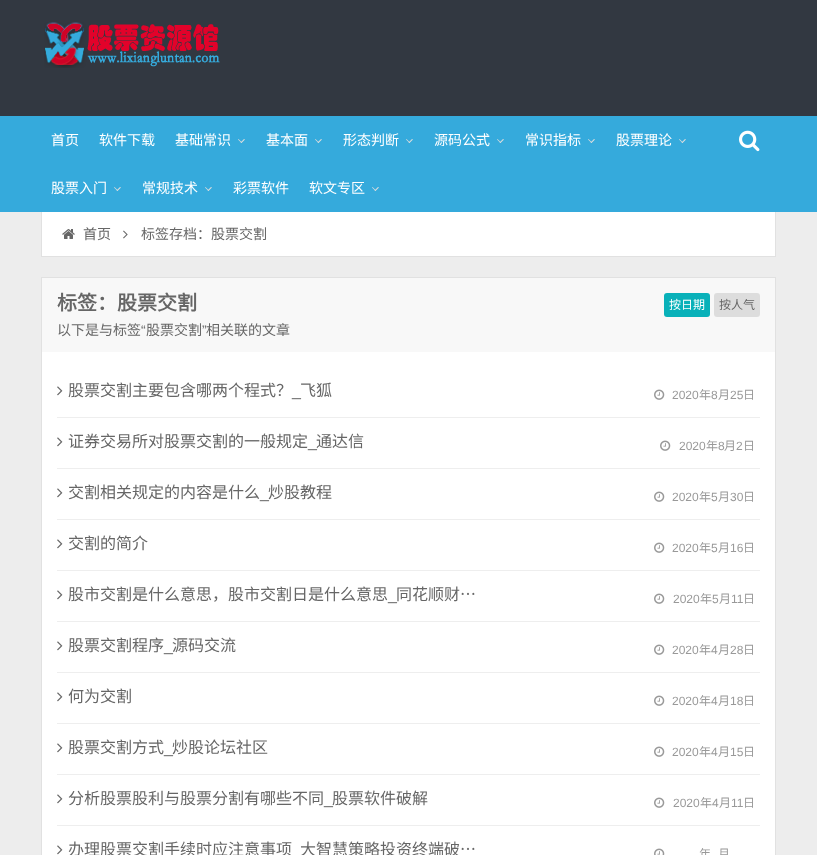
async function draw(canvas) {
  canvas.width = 817;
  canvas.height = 855;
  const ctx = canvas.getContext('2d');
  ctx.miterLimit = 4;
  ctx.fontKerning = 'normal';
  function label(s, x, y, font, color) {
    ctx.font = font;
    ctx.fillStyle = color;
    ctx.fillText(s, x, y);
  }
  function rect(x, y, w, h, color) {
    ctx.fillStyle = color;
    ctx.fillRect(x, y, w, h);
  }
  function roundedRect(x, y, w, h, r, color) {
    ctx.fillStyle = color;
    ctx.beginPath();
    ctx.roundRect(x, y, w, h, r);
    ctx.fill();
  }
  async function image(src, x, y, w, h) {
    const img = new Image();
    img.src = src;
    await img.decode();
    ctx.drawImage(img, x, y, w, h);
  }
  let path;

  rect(0, 0, 817, 855, '#ededed');
  rect(0, 0, 817, 116, '#323841');
  await image('assets/img1.png', 44, 22, 176, 46);
  rect(0, 116, 817, 96, '#35aadc');
  await image('assets/img2.png', 739, 130, 21, 22);
  label('首页', 51, 145, '14px Noto Sans CJK SC', '#fff');
  label('软件下载', 99, 145, '14px Noto Sans CJK SC', '#fff');
  label('基础常识', 175, 145, '14px Noto Sans CJK SC', '#fff');
  ctx.fillStyle = '#ddd';
  path = new Path2D('M244 139L245 139.5L241.5 143L240.5 142.5Z');
  ctx.fill(path);
  path = new Path2D('M238.5 139L242 142.5L241.5 143L238 139.5Z');
  ctx.fill(path);
  label('基本面', 266, 145, '14px Noto Sans CJK SC', '#fff');
  ctx.fillStyle = '#ddd';
  path = new Path2D('M321 139L322 139.5L318.5 143L317.5 142.5Z');
  ctx.fill(path);
  path = new Path2D('M315.5 139L319 142.5L318.5 143L315 139.5Z');
  ctx.fill(path);
  label('形态判断', 343, 145, '14px Noto Sans CJK SC', '#fff');
  ctx.fillStyle = '#ddd';
  path = new Path2D('M412 139L413 139.5L409.5 143L408.5 142.5Z');
  ctx.fill(path);
  path = new Path2D('M406.5 139L410 142.5L409.5 143L406 139.5Z');
  ctx.fill(path);
  label('源码公式', 434, 145, '14px Noto Sans CJK SC', '#fff');
  ctx.fillStyle = '#ddd';
  path = new Path2D('M503 139L504 139.5L500.5 143L499.5 142.5Z');
  ctx.fill(path);
  path = new Path2D('M497.5 139L501 142.5L500.5 143L497 139.5Z');
  ctx.fill(path);
  label('常识指标', 525, 145, '14px Noto Sans CJK SC', '#fff');
  ctx.fillStyle = '#ddd';
  path = new Path2D('M594 139L595 139.5L591.5 143L590.5 142.5Z');
  ctx.fill(path);
  path = new Path2D('M588.5 139L592 142.5L591.5 143L588 139.5Z');
  ctx.fill(path);
  label('股票理论', 616, 145, '14px Noto Sans CJK SC', '#fff');
  ctx.fillStyle = '#ddd';
  path = new Path2D('M685 139L686 139.5L682.5 143L681.5 142.5Z');
  ctx.fill(path);
  path = new Path2D('M679.5 139L683 142.5L682.5 143L679 139.5Z');
  ctx.fill(path);
  label('股票入门', 51, 193, '14px Noto Sans CJK SC', '#fff');
  ctx.fillStyle = '#ddd';
  path = new Path2D('M120 187L121 187.5L117.5 191L116.5 190.5Z');
  ctx.fill(path);
  path = new Path2D('M114.5 187L118 190.5L117.5 191L114 187.5Z');
  ctx.fill(path);
  label('常规技术', 142, 193, '14px Noto Sans CJK SC', '#fff');
  ctx.fillStyle = '#ddd';
  path = new Path2D('M211 187L212 187.5L208.5 191L207.5 190.5Z');
  ctx.fill(path);
  path = new Path2D('M205.5 187L209 190.5L208.5 191L205 187.5Z');
  ctx.fill(path);
  label('彩票软件', 233, 193, '14px Noto Sans CJK SC', '#fff');
  label('软文专区', 309, 193, '14px Noto Sans CJK SC', '#fff');
  ctx.fillStyle = '#ddd';
  path = new Path2D('M378 187L379 187.5L375.5 191L374.5 190.5Z');
  ctx.fill(path);
  path = new Path2D('M372.5 187L376 190.5L375.5 191L372 187.5Z');
  ctx.fill(path);
  rect(42, 212, 733, 44, '#fff');
  rect(775, 212, 1, 45, '#e1e1e1');
  rect(41, 256, 735, 1, '#e1e1e1');
  rect(41, 212, 1, 45, '#e1e1e1');
  await image('assets/img3.png', 62, 229, 13, 10);
  label('首页', 83, 239, '14px Noto Sans CJK SC', '#666');
  await image('assets/img4.png', 123, 230, 5, 9);
  label('标签存档：股票交割', 141, 239, '14px Noto Sans CJK SC', '#666');
  rect(42, 352, 733, 503, '#fff');
  rect(41, 277, 735, 1, '#e1e1e1');
  rect(775, 277, 1, 578, '#e1e1e1');
  rect(41, 277, 1, 578, '#e1e1e1');
  rect(42, 278, 733, 74, '#f8f8f8');
  label('标签：股票交割', 57, 310, 'bold 20px Noto Sans CJK SC', '#666');
  roundedRect(664, 293, 46, 24, 3, '#09b1b9');
  label('按日期', 669, 309, '12px Noto Sans CJK SC', '#fff');
  roundedRect(714, 293, 46, 24, 3, '#ddd');
  label('按人气', 719, 309, '12px Noto Sans CJK SC', '#666');
  label('以下是与标签', 57, 335, '14px Noto Sans CJK SC', '#666');
  label('“', 141, 335, '14px Liberation Sans', '#666');
  label('股票交割', 146, 335, '14px Noto Sans CJK SC', '#666');
  label('”', 202, 335, '14px Liberation Sans', '#666');
  label('相关联的文章', 206, 335, '14px Noto Sans CJK SC', '#666');
  rect(57, 417, 703, 1, '#eee');
  await image('assets/img5.png', 57, 386, 6, 10);
  label('股票交割主要包含哪两个程式？', 68, 396, '16px Noto Sans CJK SC', '#666');
  label('飞狐', 300, 396, '16px Noto Sans CJK SC', '#666');
  label('_', 292, 396, '16px Liberation Sans', '#666');
  await image('assets/img6.png', 654, 389, 11, 11);
  label('2020', 672, 399, '12px Liberation Sans', '#999');
  label('年', 699, 399, '12px Noto Sans CJK SC', '#999');
  label('8', 711, 399, '12px Liberation Sans', '#999');
  label('月', 718, 399, '12px Noto Sans CJK SC', '#999');
  label('25', 730, 399, '12px Liberation Sans', '#999');
  label('日', 743, 399, '12px Noto Sans CJK SC', '#999');
  rect(57, 468, 703, 1, '#eee');
  await image('assets/img5.png', 57, 437, 6, 10);
  label('证券交易所对股票交割的一般规定', 68, 447, '16px Noto Sans CJK SC', '#666');
  label('通达信', 316, 447, '16px Noto Sans CJK SC', '#666');
  label('_', 308, 447, '16px Liberation Sans', '#666');
  await image('assets/img6.png', 660, 440, 11, 11);
  label('2020', 679, 450, '12px Liberation Sans', '#999');
  label('年', 706, 450, '12px Noto Sans CJK SC', '#999');
  label('8', 718, 450, '12px Liberation Sans', '#999');
  label('月', 724, 450, '12px Noto Sans CJK SC', '#999');
  label('2', 736, 450, '12px Liberation Sans', '#999');
  label('日', 743, 450, '12px Noto Sans CJK SC', '#999');
  rect(57, 519, 703, 1, '#eee');
  await image('assets/img5.png', 57, 488, 6, 10);
  label('交割相关规定的内容是什么', 68, 498, '16px Noto Sans CJK SC', '#666');
  label('炒股教程', 268, 498, '16px Noto Sans CJK SC', '#666');
  label('_', 260, 498, '16px Liberation Sans', '#666');
  await image('assets/img6.png', 654, 491, 11, 11);
  label('2020', 672, 501, '12px Liberation Sans', '#999');
  label('年', 699, 501, '12px Noto Sans CJK SC', '#999');
  label('5', 711, 501, '12px Liberation Sans', '#999');
  label('月', 718, 501, '12px Noto Sans CJK SC', '#999');
  label('30', 730, 501, '12px Liberation Sans', '#999');
  label('日', 743, 501, '12px Noto Sans CJK SC', '#999');
  rect(57, 570, 703, 1, '#eee');
  await image('assets/img5.png', 57, 539, 6, 10);
  label('交割的简介', 68, 549, '16px Noto Sans CJK SC', '#666');
  await image('assets/img6.png', 654, 542, 11, 11);
  label('2020', 672, 552, '12px Liberation Sans', '#999');
  label('年', 699, 552, '12px Noto Sans CJK SC', '#999');
  label('5', 711, 552, '12px Liberation Sans', '#999');
  label('月', 718, 552, '12px Noto Sans CJK SC', '#999');
  label('16', 730, 552, '12px Liberation Sans', '#999');
  label('日', 743, 552, '12px Noto Sans CJK SC', '#999');
  rect(57, 621, 703, 1, '#eee');
  await image('assets/img5.png', 57, 590, 6, 10);
  label('股市交割是什么意思，股市交割日是什么意思', 68, 600, '16px Noto Sans CJK SC', '#666');
  label('同花顺财…', 396, 600, '16px Noto Sans CJK SC', '#666');
  label('_', 388, 600, '16px Liberation Sans', '#666');
  await image('assets/img6.png', 654, 593, 11, 11);
  label('2020', 673, 603, '12px Liberation Sans', '#999');
  label('年', 700, 603, '12px Noto Sans CJK SC', '#999');
  label('5', 712, 603, '12px Liberation Sans', '#999');
  label('月', 719, 603, '12px Noto Sans CJK SC', '#999');
  label('11', 731, 603, '12px Liberation Sans', '#999');
  label('日', 743, 603, '12px Noto Sans CJK SC', '#999');
  rect(57, 672, 703, 1, '#eee');
  await image('assets/img5.png', 57, 641, 6, 10);
  label('股票交割程序', 68, 651, '16px Noto Sans CJK SC', '#666');
  label('源码交流', 172, 651, '16px Noto Sans CJK SC', '#666');
  label('_', 164, 651, '16px Liberation Sans', '#666');
  await image('assets/img6.png', 654, 644, 11, 11);
  label('2020', 672, 654, '12px Liberation Sans', '#999');
  label('年', 699, 654, '12px Noto Sans CJK SC', '#999');
  label('4', 711, 654, '12px Liberation Sans', '#999');
  label('月', 718, 654, '12px Noto Sans CJK SC', '#999');
  label('28', 730, 654, '12px Liberation Sans', '#999');
  label('日', 743, 654, '12px Noto Sans CJK SC', '#999');
  rect(57, 723, 703, 1, '#eee');
  await image('assets/img5.png', 57, 692, 6, 10);
  label('何为交割', 68, 702, '16px Noto Sans CJK SC', '#666');
  await image('assets/img6.png', 654, 695, 11, 11);
  label('2020', 672, 705, '12px Liberation Sans', '#999');
  label('年', 699, 705, '12px Noto Sans CJK SC', '#999');
  label('4', 711, 705, '12px Liberation Sans', '#999');
  label('月', 718, 705, '12px Noto Sans CJK SC', '#999');
  label('18', 730, 705, '12px Liberation Sans', '#999');
  label('日', 743, 705, '12px Noto Sans CJK SC', '#999');
  rect(57, 774, 703, 1, '#eee');
  await image('assets/img5.png', 57, 743, 6, 10);
  label('股票交割方式', 68, 753, '16px Noto Sans CJK SC', '#666');
  label('炒股论坛社区', 172, 753, '16px Noto Sans CJK SC', '#666');
  label('_', 164, 753, '16px Liberation Sans', '#666');
  await image('assets/img6.png', 654, 746, 11, 11);
  label('2020', 672, 756, '12px Liberation Sans', '#999');
  label('年', 699, 756, '12px Noto Sans CJK SC', '#999');
  label('4', 711, 756, '12px Liberation Sans', '#999');
  label('月', 718, 756, '12px Noto Sans CJK SC', '#999');
  label('15', 730, 756, '12px Liberation Sans', '#999');
  label('日', 743, 756, '12px Noto Sans CJK SC', '#999');
  rect(57, 825, 703, 1, '#eee');
  await image('assets/img5.png', 57, 794, 6, 10);
  label('分析股票股利与股票分割有哪些不同', 68, 804, '16px Noto Sans CJK SC', '#666');
  label('股票软件破解', 332, 804, '16px Noto Sans CJK SC', '#666');
  label('_', 324, 804, '16px Liberation Sans', '#666');
  await image('assets/img6.png', 654, 797, 11, 11);
  label('2020', 673, 807, '12px Liberation Sans', '#999');
  label('年', 700, 807, '12px Noto Sans CJK SC', '#999');
  label('4', 712, 807, '12px Liberation Sans', '#999');
  label('月', 719, 807, '12px Noto Sans CJK SC', '#999');
  label('11', 731, 807, '12px Liberation Sans', '#999');
  label('日', 743, 807, '12px Noto Sans CJK SC', '#999');
  await image('assets/img5.png', 57, 845, 6, 10);
  label('办理股票交割手续时应注意事项', 68, 855, '16px Noto Sans CJK SC', '#666');
  label('大智慧策略投资终端破…', 300, 855, '16px Noto Sans CJK SC', '#666');
  await image('assets/img7.png', 654, 848, 11, 7);
  label('年', 699, 858, '12px Noto Sans CJK SC', '#999');
  label('月', 718, 858, '12px Noto Sans CJK SC', '#999');
}

draw(document.querySelector('canvas'));
